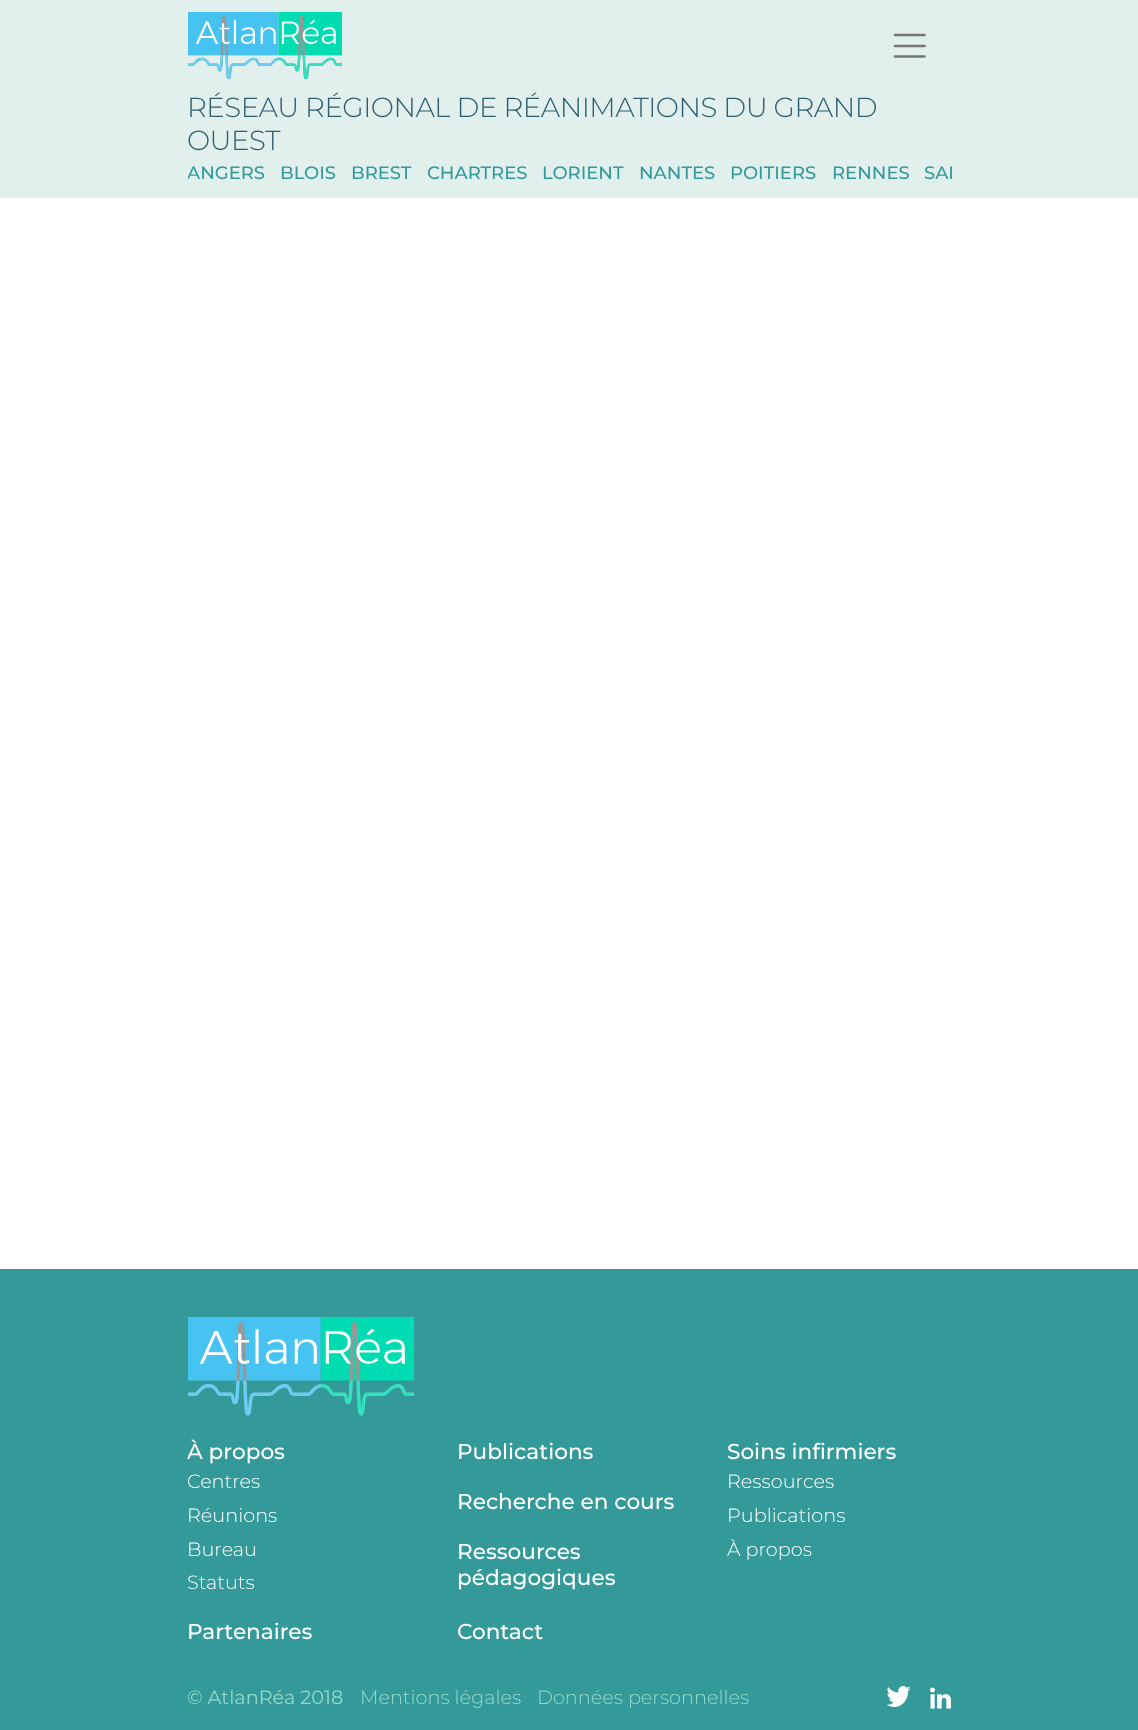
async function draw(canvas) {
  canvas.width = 1138;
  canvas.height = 1730;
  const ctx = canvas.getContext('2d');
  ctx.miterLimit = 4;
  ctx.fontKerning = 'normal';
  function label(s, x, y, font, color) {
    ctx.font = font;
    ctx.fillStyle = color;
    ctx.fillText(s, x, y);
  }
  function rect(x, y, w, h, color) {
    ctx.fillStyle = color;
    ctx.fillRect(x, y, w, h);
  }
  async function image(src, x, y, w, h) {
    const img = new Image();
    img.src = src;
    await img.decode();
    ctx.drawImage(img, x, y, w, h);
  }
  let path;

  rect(0, 0, 1138, 1730, '#fff');
  rect(0, 0, 1138, 198, '#e1f0ed');
  await image('assets/img1.png', 188, 12, 154, 68);
  path = new Path2D('M895 35H924.5M895 46H924.5M895 56.5H924.5');
  ctx.strokeStyle = '#717877';
  ctx.lineWidth = 2.7;
  ctx.lineCap = 'round';
  ctx.stroke(path);
  ctx.letterSpacing = '-0.5px';
  label('RÉSEAU RÉGIONAL DE RÉANIMATIONS DU GRAND', 187, 117, '300 27.6px Montserrat', '#2e5f71');
  label('OUEST', 187, 150, '300 27.6px Montserrat', '#2e5f71');
  ctx.save();
  ctx.beginPath();
  ctx.rect(188, 162, 765, 24);
  ctx.clip();
  ctx.letterSpacing = '0px';
  label('ANGERS', 187, 179, '500 18px Montserrat', '#399');
  ctx.restore();
  ctx.letterSpacing = '0px';
  label('BLOIS', 280, 179, '500 18px Montserrat', '#399');
  label('BREST', 351, 179, '500 18px Montserrat', '#399');
  label('CHARTRES', 427, 179, '500 18px Montserrat', '#399');
  label('LORIENT', 542, 179, '500 18px Montserrat', '#399');
  label('NANTES', 639, 179, '500 18px Montserrat', '#399');
  label('POITIERS', 730, 179, '500 18px Montserrat', '#399');
  label('RENNES', 832, 179, '500 18px Montserrat', '#399');
  label('SAI', 924, 179, '500 18px Montserrat', '#399');
  rect(0, 1269, 1138, 461, '#399');
  await image('assets/img2.png', 188, 1317, 226, 99);
  label('À propos', 187, 1459, '500 21.6px Montserrat', '#fff');
  label('Centres', 187, 1488, '300 19.25px Montserrat', '#fff');
  label('Réunions', 187, 1522, '300 19.25px Montserrat', '#fff');
  label('Bureau', 187, 1556, '300 19.25px Montserrat', '#fff');
  label('Statuts', 187, 1589, '300 19.25px Montserrat', '#fff');
  label('Publications', 457, 1459, '500 21.6px Montserrat', '#fff');
  label('Recherche en cours', 457, 1509, '500 21.6px Montserrat', '#fff');
  label('Ressources', 457, 1559, '500 21.6px Montserrat', '#fff');
  label('pédagogiques', 457, 1585, '500 21.6px Montserrat', '#fff');
  label('Soins infirmiers', 727, 1459, '500 21.6px Montserrat', '#fff');
  label('Ressources', 727, 1488, '300 19.25px Montserrat', '#fff');
  label('Publications', 727, 1522, '300 19.25px Montserrat', '#fff');
  label('À propos', 727, 1556, '300 19.25px Montserrat', '#fff');
  label('Partenaires', 187, 1639, '500 21.6px Montserrat', '#fff');
  label('Contact', 457, 1639, '500 21.6px Montserrat', '#fff');
  label('© AtlanRéa 2018', 187, 1704, '19.25px Montserrat', '#96d9ca');
  label('Mentions légales', 360, 1704, '300 19.25px Montserrat', '#96d9ca');
  label('Données personnelles', 537, 1704, '300 19.25px Montserrat', '#96d9ca');
  await image('assets/img3.png', 887, 1686, 24, 21);
  await image('assets/img4.png', 930, 1687, 21, 22);
}

draw(document.querySelector('canvas'));
